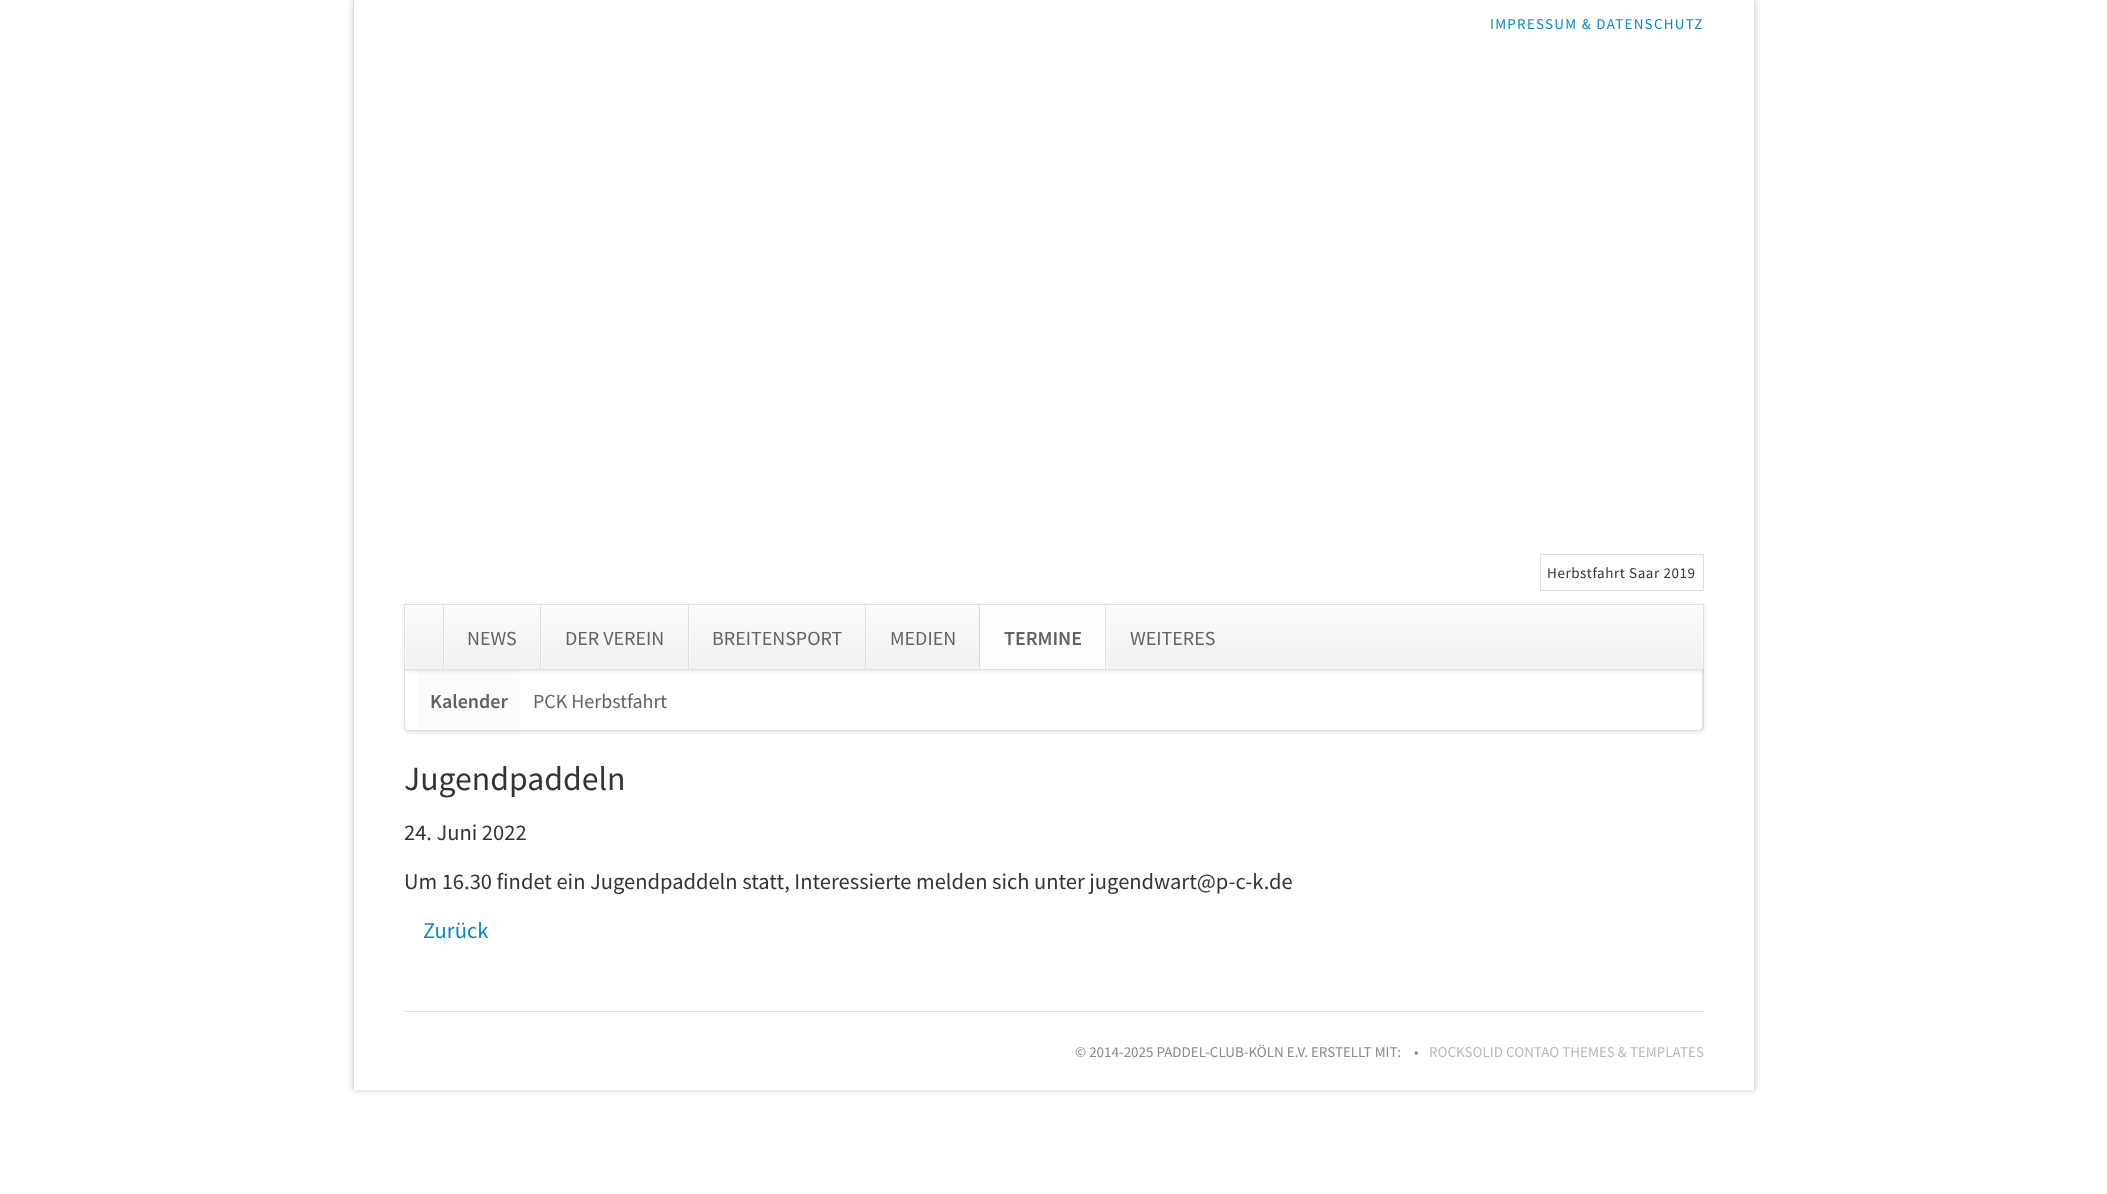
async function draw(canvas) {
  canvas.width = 2107;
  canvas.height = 1194;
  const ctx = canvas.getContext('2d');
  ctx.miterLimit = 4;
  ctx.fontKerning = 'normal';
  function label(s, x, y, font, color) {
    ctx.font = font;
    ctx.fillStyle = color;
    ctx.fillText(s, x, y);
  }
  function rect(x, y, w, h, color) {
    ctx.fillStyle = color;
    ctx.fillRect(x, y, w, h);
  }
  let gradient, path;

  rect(0, 0, 2107, 1194, '#fff');
  ctx.save();
  path = new Path2D('M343 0H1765V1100H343ZM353 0H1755V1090H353Z');
  ctx.clip(path, 'evenodd');
  ctx.fillStyle = '#00000033';
  ctx.filter = 'blur(3px)';
  ctx.beginPath();
  ctx.rect(353, 0, 1402, 1090);
  ctx.fill();
  ctx.filter = 'none';
  ctx.restore();
  rect(1754, 0, 1, 1090, '#dedede');
  rect(353, 0, 1, 1090, '#dedede');
  ctx.letterSpacing = '1.25px';
  label('IMPRESSUM & DATENSCHUTZ', 1490, 29, '15px Source Sans Pro', '#0788ca');
  ctx.strokeStyle = '#dedede';
  ctx.strokeRect(1540.5, 554.5, 163, 36);
  ctx.letterSpacing = '0.6px';
  label('Herbstfahrt Saar 2019', 1547, 578, '15px Source Sans Pro', '#343434');
  ctx.save();
  path = new Path2D('M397 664H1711V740H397ZM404 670H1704V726C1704 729 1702 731 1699 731H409C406 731 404 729 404 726Z');
  ctx.clip(path, 'evenodd');
  ctx.fillStyle = '#0000001a';
  ctx.filter = 'blur(2px)';
  ctx.beginPath();
  ctx.roundRect(404, 671, 1300, 62, 5);
  ctx.fill();
  ctx.filter = 'none';
  ctx.restore();
  ctx.fillStyle = '#dedede';
  path = new Path2D('M404 670H1704V726C1704 729 1702 731 1699 731H409C406 731 404 729 404 726ZM405 670H1702V726C1702 728 1701 730 1699 730H409C407 730 405 728 405 726Z');
  ctx.fill(path, 'evenodd');
  rect(418, 670, 101, 60, '#fbfbfb');
  ctx.fillStyle = '#0000001a';
  ctx.filter = 'blur(2px)';
  ctx.beginPath();
  ctx.rect(404, 605, 1300, 66);
  ctx.fill();
  ctx.filter = 'none';
  gradient = ctx.createLinearGradient(1054, 605, 1054, 669);
  gradient.addColorStop(0, '#fbfbfb');
  gradient.addColorStop(1, '#f1f1f1');
  ctx.fillStyle = gradient;
  ctx.fillRect(405, 605, 1298, 64);
  ctx.strokeStyle = '#ffffff80';
  ctx.strokeRect(405.5, 605.5, 1297, 63);
  ctx.strokeStyle = '#dedede';
  ctx.strokeRect(404.5, 604.5, 1299, 65);
  rect(444, 615, 1, 54, '#ffffff80');
  rect(443, 605, 1, 64, '#dedede');
  ctx.letterSpacing = '0px';
  label('NEWS', 467, 645, '20px Source Sans Pro', '#636363');
  rect(541, 615, 1, 54, '#ffffff80');
  rect(540, 605, 1, 64, '#dedede');
  label('DER VEREIN', 565, 645, '20px Source Sans Pro', '#636363');
  rect(689, 615, 1, 54, '#ffffff80');
  rect(688, 605, 1, 64, '#dedede');
  label('BREITENSPORT', 712, 645, '20px Source Sans Pro', '#636363');
  rect(866, 615, 1, 54, '#ffffff80');
  rect(865, 605, 1, 64, '#dedede');
  label('MEDIEN', 890, 645, '20px Source Sans Pro', '#636363');
  rect(980, 606, 125, 63, '#fefefe');
  rect(979, 605, 1, 64, '#dedede');
  label('TERMINE', 1004, 645, '600 20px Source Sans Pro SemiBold', '#636363');
  rect(1106, 615, 1, 54, '#ffffff80');
  rect(1105, 605, 1, 64, '#dedede');
  label('WEITERES', 1130, 645, '20px Source Sans Pro', '#636363');
  rect(405, 647, 1, 11, '#ffffff80');
  label('Kalender', 430, 708, '600 20px Source Sans Pro SemiBold', '#636363');
  label('PCK Herbstfahrt', 533, 708, '20px Source Sans Pro', '#636363');
  label('Jugendpaddeln', 404, 790, '33.75px Source Sans Pro', '#343434');
  label('24. Juni 2022', 404, 840, '22.5px Source Sans Pro', '#343434');
  label('Um 16.30 findet ein Jugendpaddeln statt, Interessierte melden sich unter jugendwart@p-c-k.de', 404, 889, '22.5px Source Sans Pro', '#343434');
  label('Zurück', 423, 938, '22.5px Source Sans Pro', '#0788ca');
  rect(404, 1011, 1300, 1, '#dedede');
  label('© 2014-2025 PADDEL-CLUB-KÖLN E.V. ERSTELLT MIT:', 1075, 1057, '15px Source Sans Pro', '#8a8a8a');
  label('•', 1414, 1057, '15px Source Sans Pro', '#8a8a8a');
  label('ROCKSOLID CONTAO THEMES & TEMPLATES', 1429, 1057, '15px Source Sans Pro', '#b8b8b8');
}

draw(document.querySelector('canvas'));
